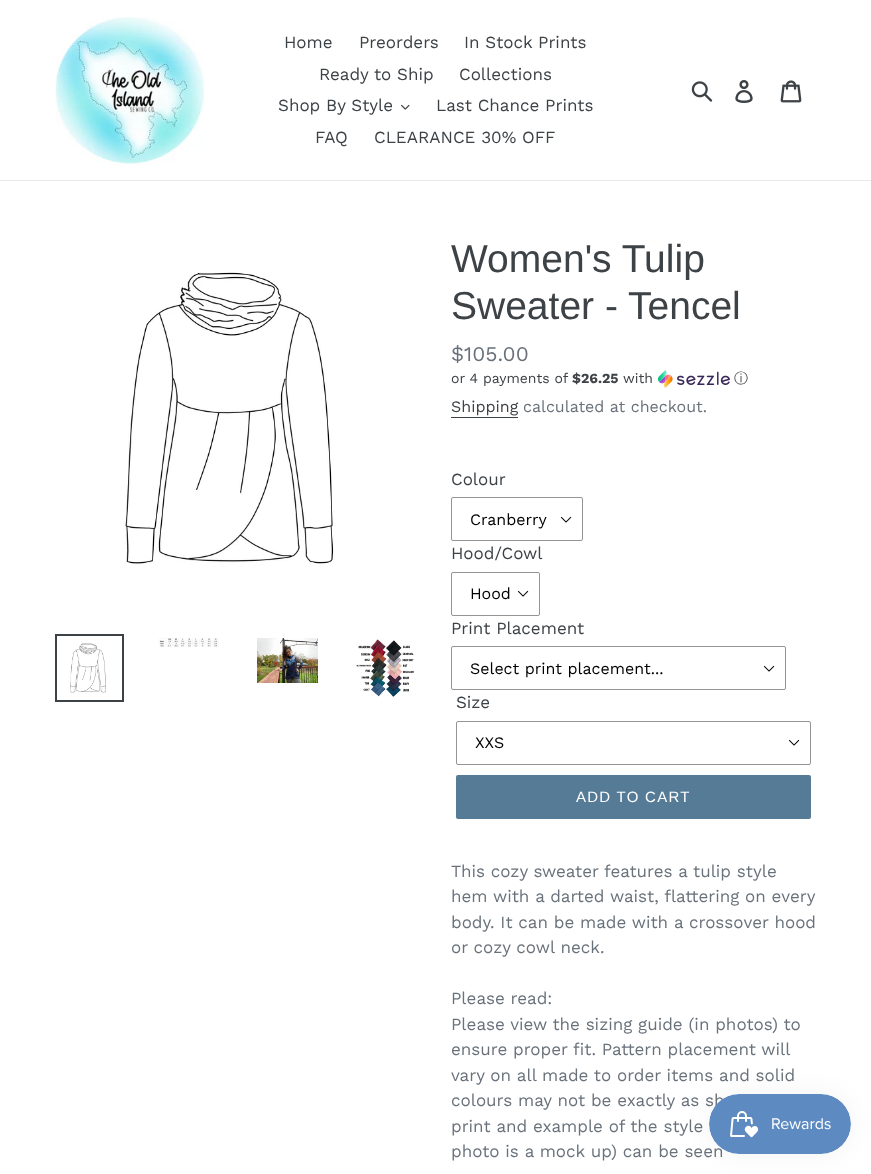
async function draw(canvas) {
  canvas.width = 871;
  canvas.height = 1174;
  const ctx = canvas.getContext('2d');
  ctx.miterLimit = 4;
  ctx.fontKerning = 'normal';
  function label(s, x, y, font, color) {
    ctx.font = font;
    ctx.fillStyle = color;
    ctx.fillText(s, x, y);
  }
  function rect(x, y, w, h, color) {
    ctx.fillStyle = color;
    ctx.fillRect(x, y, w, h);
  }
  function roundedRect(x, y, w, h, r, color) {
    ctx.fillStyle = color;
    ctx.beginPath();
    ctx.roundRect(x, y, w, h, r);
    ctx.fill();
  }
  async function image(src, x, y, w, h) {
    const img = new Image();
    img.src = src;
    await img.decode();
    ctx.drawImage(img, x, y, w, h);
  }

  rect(0, 0, 871, 1174, '#fff');
  rect(0, 180, 871, 1, '#e8e9eb');
  await image('assets/img1.png', 55, 17, 150, 148);
  label('Home', 284, 48, '17px Work Sans', '#3d4246');
  label('Preorders', 359, 48, '17px Work Sans', '#3d4246');
  label('In Stock Prints', 464, 48, '17px Work Sans', '#3d4246');
  label('Ready to Ship', 319, 80, '17px Work Sans', '#3d4246');
  label('Collections', 459, 80, '17px Work Sans', '#3d4246');
  label('Shop By Style', 278, 111, '17px Work Sans', '#3d4246');
  await image('assets/img2.png', 401, 104, 9, 6);
  label('Last Chance Prints', 436, 111, '17px Work Sans', '#3d4246');
  label('FAQ', 315, 143, '17px Work Sans', '#3d4246');
  label('CLEARANCE 30% OFF', 374, 143, '17px Work Sans', '#3d4246');
  await image('assets/img3.png', 691, 81, 22, 21);
  await image('assets/img4.png', 735, 80, 18, 23);
  await image('assets/img5.png', 780, 80, 22, 23);
  await image('assets/img6.png', 125, 272, 210, 292);
  ctx.strokeStyle = '#3d4246';
  ctx.lineWidth = 2;
  ctx.strokeRect(56, 635, 67, 66);
  await image('assets/img7.png', 70, 643, 36, 50);
  await image('assets/img8.png', 158, 638, 61, 9);
  await image('assets/img9.png', 257, 638, 61, 45);
  await image('assets/img10.png', 356, 639, 58, 58);
  label('Women\'s Tulip', 451, 272, '39px Arimo', '#3d4246');
  label('Sweater - Tencel', 451, 319, '39px Arimo', '#3d4246');
  label('$105.00', 451, 361, '21px Work Sans', '#69727b');
  label('or 4 payments of', 451, 383, '14px Work Sans', '#3d4246');
  label('$26.25', 572, 383, 'bold 14px Work Sans', '#3d4246');
  label('with', 623, 383, '14px Work Sans', '#3d4246');
  await image('assets/img11.png', 658, 370, 72, 18);
  label('ⓘ', 734, 383, '500 14px WenQuanYi Zen Hei', '#3d4246');
  label('Shipping', 451, 412, '16px Work Sans', '#3d4246');
  rect(451, 417, 67, 1, '#3d4246');
  label('calculated at checkout.', 523, 412, '16px Work Sans', '#69727b');
  label('Colour', 451, 485, '17px Work Sans', '#3d4246');
  await image('assets/img12.png', 560, 516, 12, 7);
  ctx.beginPath();
  ctx.roundRect(451.5, 497.5, 131, 43, 1.5);
  ctx.strokeStyle = '#949494';
  ctx.lineWidth = 1;
  ctx.stroke();
  label('Cranberry', 470, 525, '16px Work Sans', '#000');
  label('Hood/Cowl', 451, 559, '17px Work Sans', '#3d4246');
  await image('assets/img12.png', 517, 590, 12, 7);
  ctx.beginPath();
  ctx.roundRect(451.5, 572.5, 88, 43, 1.5);
  ctx.stroke();
  label('Hood', 470, 599, '16px Work Sans', '#000');
  label('Print Placement', 451, 634, '17px Work Sans', '#3d4246');
  await image('assets/img12.png', 763, 665, 12, 7);
  ctx.beginPath();
  ctx.roundRect(451.5, 646.5, 334, 43, 1.5);
  ctx.stroke();
  label('Select print placement...', 470, 674, '16px Work Sans', '#000');
  label('Size', 456, 708, '17px Work Sans', '#3d4246');
  await image('assets/img12.png', 788, 739, 12, 7);
  ctx.beginPath();
  ctx.roundRect(456.5, 721.5, 354, 43, 1.5);
  ctx.stroke();
  label('XXS', 475, 748, '16px Work Sans', '#000');
  roundedRect(456, 775, 355, 44, 2, '#557b97');
  ctx.letterSpacing = '1.25px';
  label('ADD TO CART', 576, 802, '15px Arimo', '#fff');
  ctx.letterSpacing = '0px';
  label('This cozy sweater features a tulip style', 451, 877, '17px Work Sans', '#69727b');
  label('hem with a darted waist, flattering on every', 451, 902, '17px Work Sans', '#69727b');
  label('body. It can be made with a crossover hood', 451, 928, '17px Work Sans', '#69727b');
  label('or cozy cowl neck.', 451, 953, '17px Work Sans', '#69727b');
  label('Please read:', 451, 1004, '17px Work Sans', '#69727b');
  label('Please view the sizing guide (in photos) to', 451, 1030, '17px Work Sans', '#69727b');
  label('ensure proper fit. Pattern placement will', 451, 1055, '17px Work Sans', '#69727b');
  label('vary on all made to order items and solid', 451, 1081, '17px Work Sans', '#69727b');
  label('colours may not be exactly as sh', 451, 1106, '17px Work Sans', '#69727b');
  label('print and example of the style', 451, 1132, '17px Work Sans', '#69727b');
  label('photo is a mock up) can be seen', 451, 1157, '17px Work Sans', '#69727b');
  ctx.fillStyle = '#0000000d';
  ctx.filter = 'blur(12.5px)';
  ctx.beginPath();
  ctx.roundRect(709, 1094, 142, 60, 30);
  ctx.fill();
  ctx.filter = 'none';
  await image('assets/img13.png', 709, 1094, 142, 60);
}

draw(document.querySelector('canvas'));
